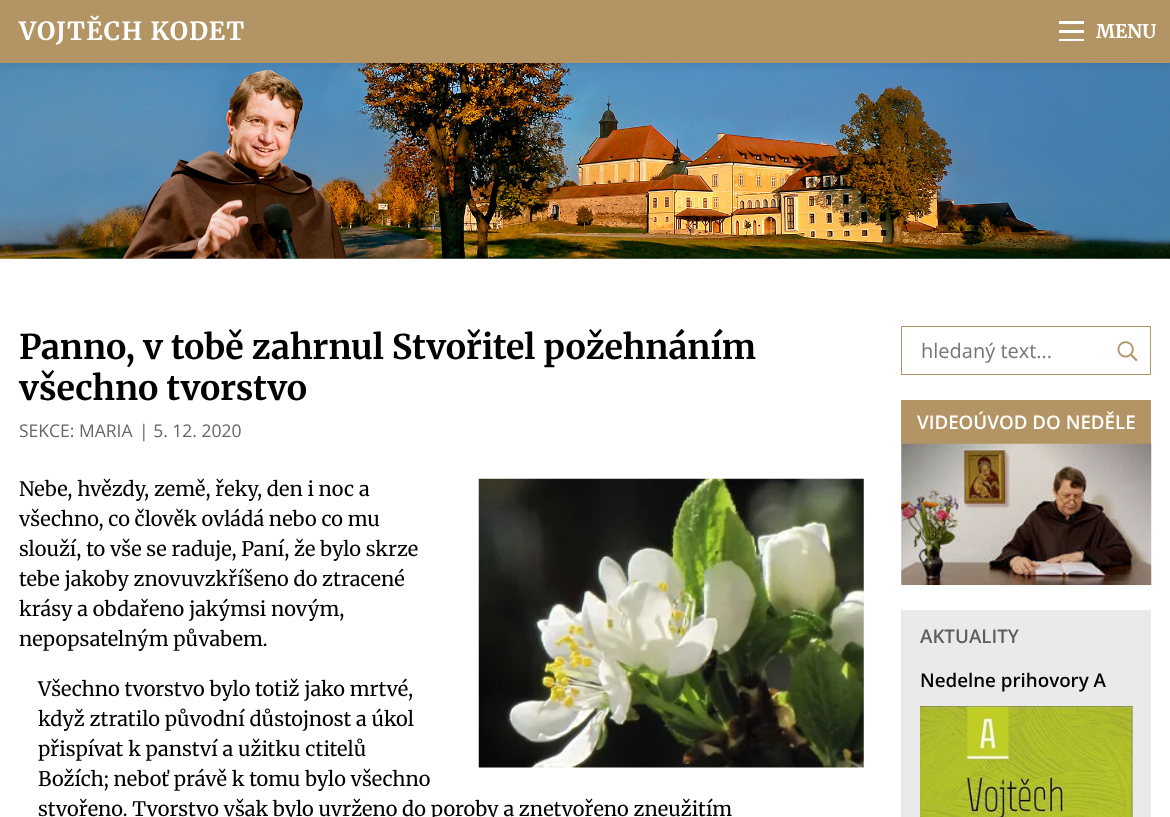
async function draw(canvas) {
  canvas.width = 1170;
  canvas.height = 817;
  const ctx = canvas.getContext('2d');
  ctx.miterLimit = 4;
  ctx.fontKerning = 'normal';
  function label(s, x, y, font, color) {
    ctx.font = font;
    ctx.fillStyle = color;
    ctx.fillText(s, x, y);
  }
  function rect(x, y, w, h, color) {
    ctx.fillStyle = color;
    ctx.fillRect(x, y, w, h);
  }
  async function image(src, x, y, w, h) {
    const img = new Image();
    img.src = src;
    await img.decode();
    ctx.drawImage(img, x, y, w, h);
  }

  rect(0, 0, 1170, 817, '#fff');
  await image('assets/img1.png', 0, 63, 1170, 196);
  ctx.fillStyle = '#00000026';
  ctx.filter = 'blur(4px)';
  ctx.beginPath();
  ctx.rect(0, 0, 1170, 63);
  ctx.fill();
  ctx.filter = 'none';
  rect(0, 0, 1170, 63, '#b39565');
  ctx.letterSpacing = '1.25px';
  label('VOJTĚCH KODET', 19, 40, 'bold 25px Merriweather', '#fff');
  rect(1059, 21, 25, 3, '#fff');
  rect(1059, 30, 25, 3, '#fff');
  rect(1059, 39, 25, 2, '#fff');
  ctx.letterSpacing = '0px';
  label('MENU', 1096, 38, 'bold 18.75px Merriweather', '#fff');
  label('Panno, v tobě zahrnul Stvořitel požehnáním', 19, 359, 'bold 34px Merriweather', '#000');
  label('všechno tvorstvo', 19, 400, 'bold 34px Merriweather', '#000');
  label('SEKCE: MARIA', 19, 437, '17.5px Open Sans', '#666');
  label('| 5. 12. 2020', 139, 437, '17.5px Open Sans', '#666');
  label('Nebe, hvězdy, země, řeky, den i noc a', 19, 496, '20px Merriweather', '#000');
  label('všechno, co člověk ovládá nebo co mu', 19, 526, '20px Merriweather', '#000');
  label('slouží, to vše se raduje, Paní, že bylo skrze', 19, 556, '20px Merriweather', '#000');
  label('tebe jakoby znovuvzkříšeno do ztracené', 19, 586, '20px Merriweather', '#000');
  label('krásy a obdařeno jakýmsi novým,', 19, 616, '20px Merriweather', '#000');
  label('nepopsatelným půvabem.', 19, 646, '20px Merriweather', '#000');
  await image('assets/img2.png', 478, 478, 386, 290);
  label('Všechno tvorstvo bylo totiž jako mrtvé,', 38, 696, '20px Merriweather', '#000');
  label('když ztratilo původní důstojnost a úkol', 38, 726, '20px Merriweather', '#000');
  label('přispívat k panství a užitku ctitelů', 38, 756, '20px Merriweather', '#000');
  label('Božích; neboť právě k tomu bylo všechno', 38, 786, '20px Merriweather', '#000');
  label('stvořeno. Tvorstvo však bylo uvrženo do poroby a znetvořeno zneužitím', 38, 816, '20px Merriweather', '#000');
  ctx.strokeStyle = '#b39565';
  ctx.strokeRect(901.5, 326.5, 249, 48);
  label('hledaný text...', 921, 358, '20px Open Sans', '#757575');
  await image('assets/img3.png', 1117, 341, 21, 21);
  rect(901, 400, 250, 44, '#b39565');
  label('VIDEOÚVOD DO NEDĚLE', 917, 429, '600 18.75px Open Sans', '#fff');
  await image('assets/img4.png', 901, 443, 251, 142);
  rect(901, 610, 250, 207, '#eaeaea');
  label('AKTUALITY', 920, 643, '600 18.75px Open Sans', '#5e5e5e');
  label('Nedelne prihovory A', 920, 687, '600 18.75px Open Sans', '#000');
  await image('assets/img5.png', 920, 706, 213, 111);
}

draw(document.querySelector('canvas'));
